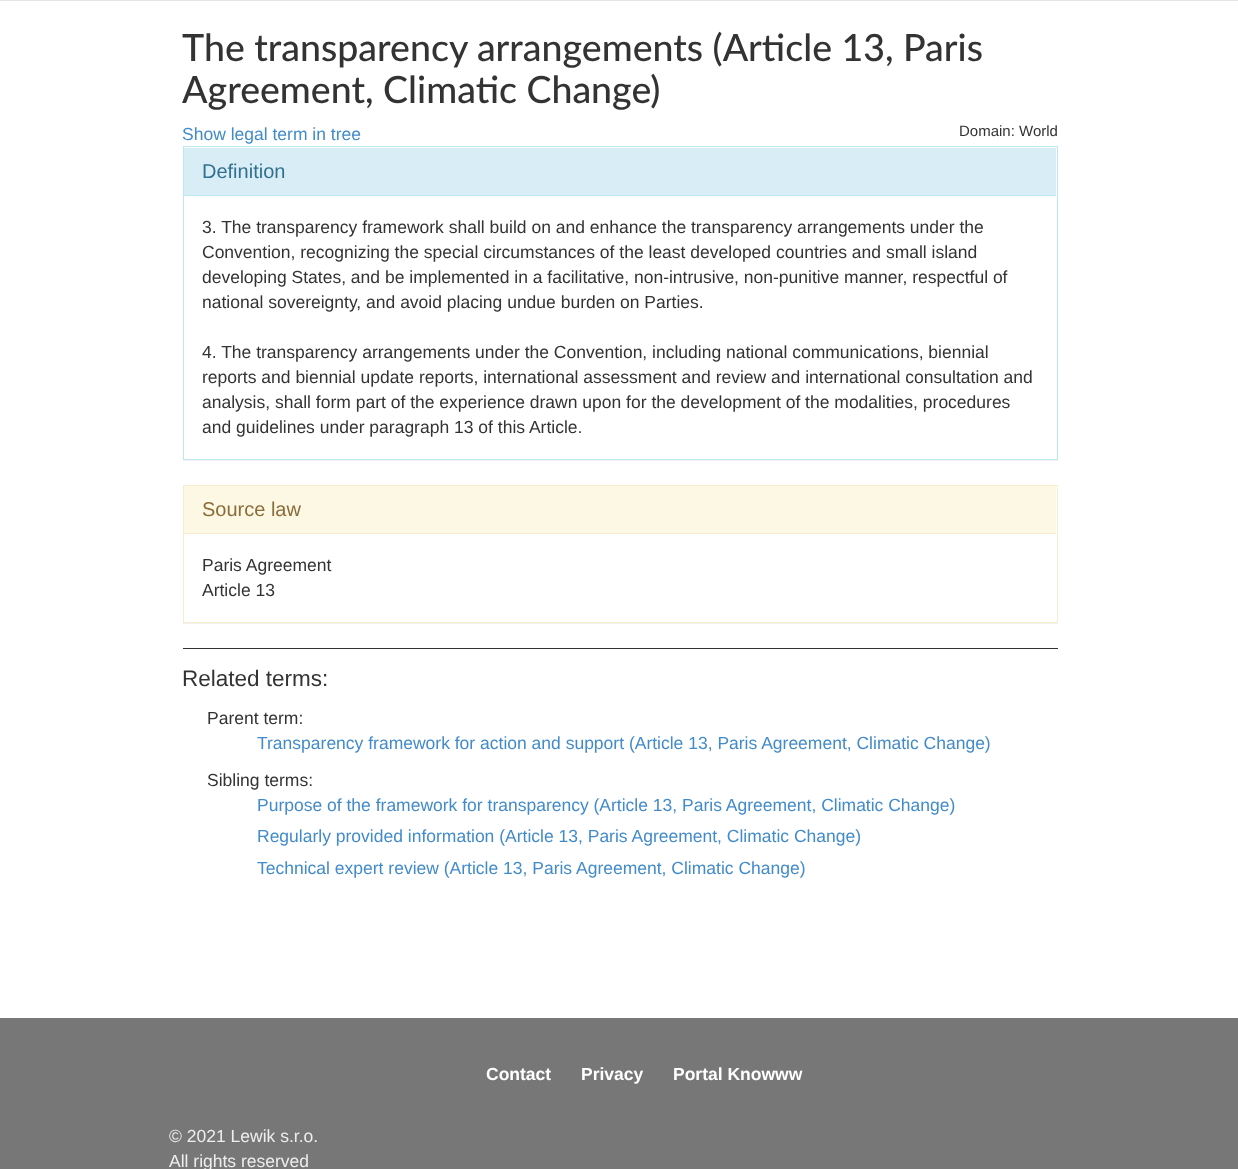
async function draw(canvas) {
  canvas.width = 1238;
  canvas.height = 1169;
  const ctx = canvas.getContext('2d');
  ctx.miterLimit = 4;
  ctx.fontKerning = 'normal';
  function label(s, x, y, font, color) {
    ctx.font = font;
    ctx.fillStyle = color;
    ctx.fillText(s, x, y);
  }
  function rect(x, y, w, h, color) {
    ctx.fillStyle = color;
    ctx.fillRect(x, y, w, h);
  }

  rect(0, 0, 1238, 1169, '#fff');
  ctx.strokeStyle = '#e5e5e5';
  ctx.strokeRect(0.5, -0.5, 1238, 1);
  label('The transparency arrangements (Article 13, Paris', 182, 61, '500 37.5px Lato', '#333');
  label('Agreement, Climatic Change)', 182, 103, '500 37.5px Lato', '#333');
  label('Show legal term in tree', 182, 140, '17.5px Liberation Sans', '#428bca');
  label('Domain: World', 959, 136, '15px Liberation Sans', '#333');
  ctx.fillStyle = '#0000000d';
  ctx.filter = 'blur(0.5px)';
  ctx.beginPath();
  ctx.rect(183, 148, 875, 313);
  ctx.fill();
  ctx.filter = 'none';
  rect(184, 148, 873, 311, '#fff');
  ctx.strokeStyle = '#bce8f1';
  ctx.strokeRect(183.5, 146.5, 874, 313);
  rect(184, 148, 872, 47, '#d9edf7');
  rect(184, 195, 872, 1, '#bce8f1');
  label('Definition', 202, 178, '20px Liberation Sans', '#31708f');
  label('3. The transparency framework shall build on and enhance the transparency arrangements under the', 202, 233, '17.5px Liberation Sans', '#333');
  label('Convention, recognizing the special circumstances of the least developed countries and small island', 202, 258, '17.5px Liberation Sans', '#333');
  label('developing States, and be implemented in a facilitative, non-intrusive, non-punitive manner, respectful of', 202, 283, '17.5px Liberation Sans', '#333');
  label('national sovereignty, and avoid placing undue burden on Parties.', 202, 308, '17.5px Liberation Sans', '#333');
  label('4. The transparency arrangements under the Convention, including national communications, biennial', 202, 358, '17.5px Liberation Sans', '#333');
  label('reports and biennial update reports, international assessment and review and international consultation and', 202, 383, '17.5px Liberation Sans', '#333');
  label('analysis, shall form part of the experience drawn upon for the development of the modalities, procedures', 202, 408, '17.5px Liberation Sans', '#333');
  label('and guidelines under paragraph 13 of this Article.', 202, 433, '17.5px Liberation Sans', '#333');
  ctx.fillStyle = '#0000000d';
  ctx.filter = 'blur(0.5px)';
  ctx.beginPath();
  ctx.rect(183, 486, 875, 138);
  ctx.fill();
  ctx.filter = 'none';
  ctx.fillStyle = '#fff';
  ctx.beginPath();
  ctx.rect(183.5, 485.5, 874, 137);
  ctx.fill();
  ctx.strokeStyle = '#faebcc';
  ctx.stroke();
  rect(184, 486, 872, 47, '#fcf8e3');
  rect(184, 533, 872, 1, '#faebcc');
  label('Source law', 202, 516, '20px Liberation Sans', '#8a6d3b');
  label('Paris Agreement', 202, 571, '17.5px Liberation Sans', '#333');
  label('Article 13', 202, 596, '17.5px Liberation Sans', '#333');
  rect(183, 648, 875, 1, '#333');
  label('Related terms:', 182, 686, '22.5px Liberation Sans', '#333');
  label('Parent term:', 207, 724, '17.5px Liberation Sans', '#333');
  label('Transparency framework for action and support (Article 13, Paris Agreement, Climatic Change)', 257, 749, '17.5px Liberation Sans', '#428bca');
  label('Sibling terms:', 207, 786, '17.5px Liberation Sans', '#333');
  label('Purpose of the framework for transparency (Article 13, Paris Agreement, Climatic Change)', 257, 811, '17.5px Liberation Sans', '#428bca');
  label('Regularly provided information (Article 13, Paris Agreement, Climatic Change)', 257, 842, '17.5px Liberation Sans', '#428bca');
  label('Technical expert review (Article 13, Paris Agreement, Climatic Change)', 257, 874, '17.5px Liberation Sans', '#428bca');
  rect(0, 1018, 1238, 151, '#777');
  label('Contact', 486, 1080, 'bold 17.5px Liberation Sans', '#fff');
  label('Privacy', 581, 1080, 'bold 17.5px Liberation Sans', '#fff');
  label('Portal Knowww', 673, 1080, 'bold 17.5px Liberation Sans', '#fff');
  label('© 2021 Lewik s.r.o.', 169, 1142, '17.5px Liberation Sans', '#eee');
  label('All rights reserved', 169, 1167, '17.5px Liberation Sans', '#eee');
}

draw(document.querySelector('canvas'));
